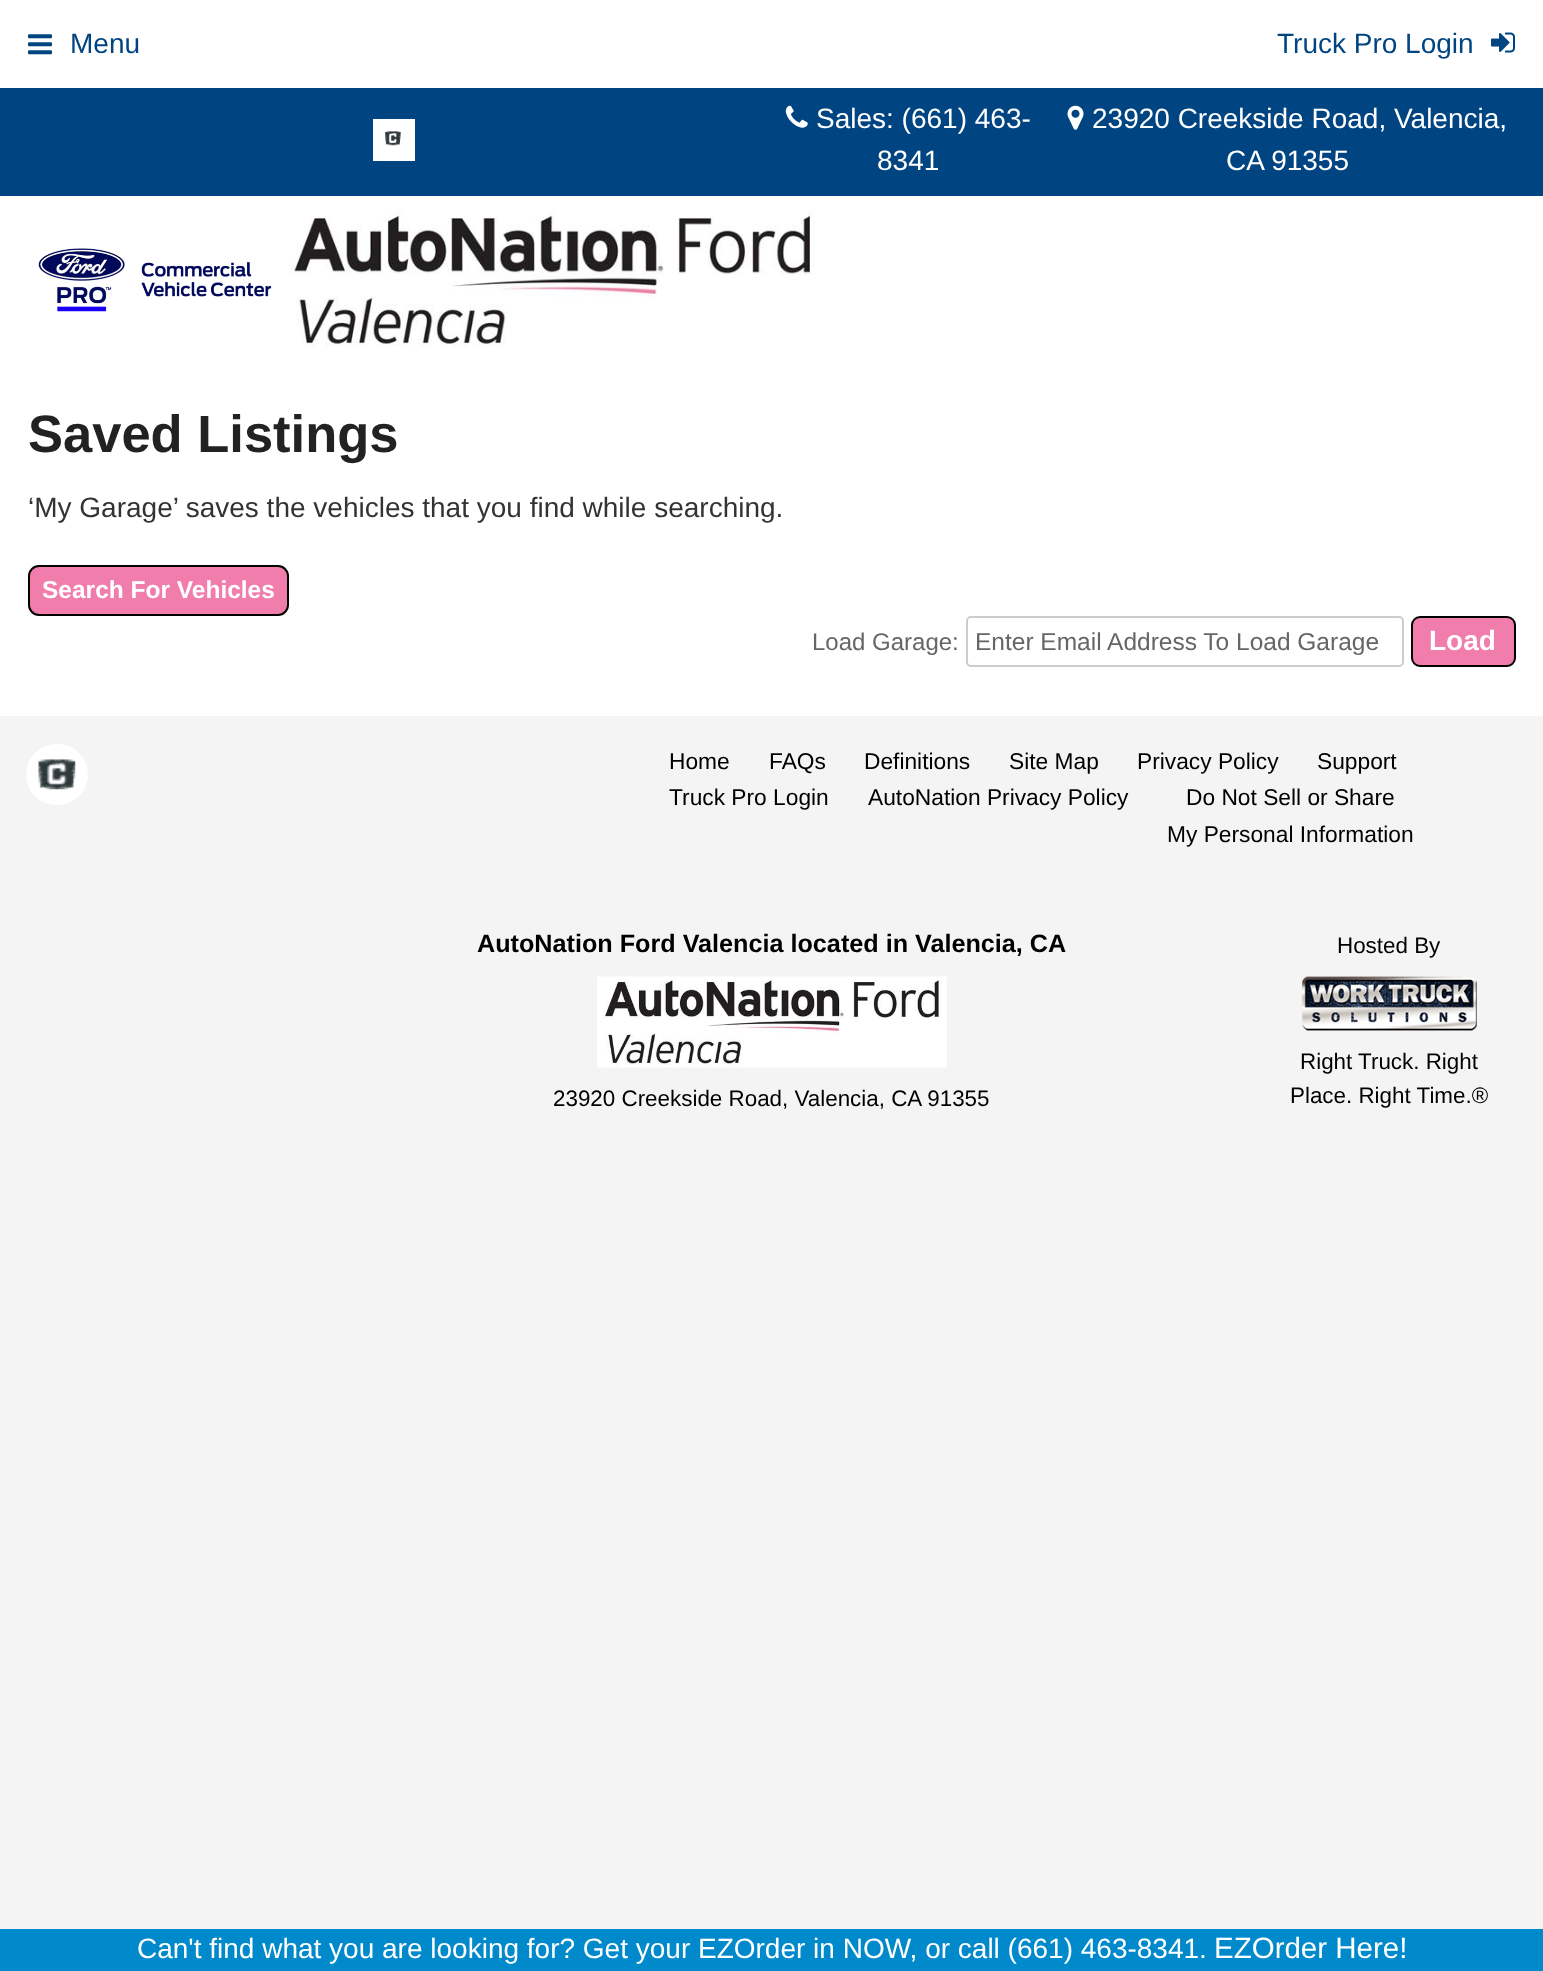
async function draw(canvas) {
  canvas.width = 1543;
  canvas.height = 1971;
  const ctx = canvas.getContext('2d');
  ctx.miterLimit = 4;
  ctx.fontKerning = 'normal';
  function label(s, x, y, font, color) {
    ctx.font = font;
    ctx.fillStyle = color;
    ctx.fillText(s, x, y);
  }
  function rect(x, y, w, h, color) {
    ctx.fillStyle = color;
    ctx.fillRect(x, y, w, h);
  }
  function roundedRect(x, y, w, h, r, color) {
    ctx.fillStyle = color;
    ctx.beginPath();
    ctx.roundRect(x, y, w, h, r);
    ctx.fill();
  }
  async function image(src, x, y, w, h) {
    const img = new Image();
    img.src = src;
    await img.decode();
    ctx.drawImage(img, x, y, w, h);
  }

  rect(0, 0, 1543, 1971, '#f4f4f4');
  rect(0, 0, 1543, 88, '#fff');
  await image('assets/img1.png', 28, 34, 24, 21);
  label('Menu', 70, 53, '28px Liberation Sans', '#004581');
  label('Truck Pro Login', 1277, 53, '28px Liberation Sans', '#004581');
  await image('assets/img2.png', 1491, 32, 24, 21);
  rect(0, 196, 1543, 520, '#fff');
  rect(0, 88, 1543, 108, '#004581');
  rect(373, 119, 42, 42, '#fff');
  await image('assets/img3.png', 385, 131, 16, 15);
  await image('assets/img4.png', 785, 105, 23, 23);
  label('Sales: (661) 463-', 816, 128, '28px Liberation Sans', '#fff');
  label('8341', 877, 170, '28px Liberation Sans', '#fff');
  await image('assets/img5.png', 1067, 105, 17, 25);
  label('23920 Creekside Road, Valencia,', 1092, 128, '28px Liberation Sans', '#fff');
  label('CA 91355', 1226, 170, '28px Liberation Sans', '#fff');
  await image('assets/img6.png', 38, 248, 234, 64);
  await image('assets/img7.png', 289, 210, 526, 137);
  label('Saved Listings', 28, 452, 'bold 52.5px Liberation Sans', '#222');
  label('‘My Garage’ saves the vehicles that you find while searching.', 28, 517, '28px Liberation Sans', '#333');
  ctx.fillStyle = '#f07dab';
  ctx.beginPath();
  ctx.roundRect(29, 566, 259, 49, 10);
  ctx.fill();
  ctx.strokeStyle = '#000';
  ctx.lineWidth = 2;
  ctx.stroke();
  label('Search For Vehicles', 42, 598, 'bold 24.5px Liberation Sans', '#fff');
  label('Load Garage:', 812, 650, '24px Liberation Sans', '#666');
  ctx.beginPath();
  ctx.roundRect(967, 617, 436, 49, 4);
  ctx.strokeStyle = '#ccc';
  ctx.stroke();
  label('Enter Email Address To Load Garage', 975, 650, '24.5px Liberation Sans', '#666');
  ctx.fillStyle = '#f07dab';
  ctx.beginPath();
  ctx.roundRect(1412, 617, 103, 49, 8);
  ctx.fill();
  ctx.strokeStyle = '#000';
  ctx.stroke();
  label('Load', 1429, 650, 'bold 28px Liberation Sans', '#fff');
  roundedRect(26, 744, 62, 61, 30.5, '#fff');
  await image('assets/img8.png', 38, 759, 38, 31);
  label('Home', 669, 769, '22.75px Liberation Sans', '#000');
  label('FAQs', 769, 769, '22.75px Liberation Sans', '#000');
  label('Definitions', 864, 769, '22.75px Liberation Sans', '#000');
  label('Site Map', 1009, 769, '22.75px Liberation Sans', '#000');
  label('Privacy Policy', 1137, 769, '22.75px Liberation Sans', '#000');
  label('Support', 1317, 769, '22.75px Liberation Sans', '#000');
  label('Truck Pro Login', 669, 805, '22.75px Liberation Sans', '#000');
  label('AutoNation Privacy Policy', 868, 805, '22.75px Liberation Sans', '#000');
  label('Do Not Sell or Share', 1186, 805, '22.75px Liberation Sans', '#000');
  label('My Personal Information', 1167, 842, '22.75px Liberation Sans', '#000');
  label('AutoNation Ford Valencia located in Valencia, CA', 477, 952, 'bold 25.2px Liberation Sans', '#000');
  await image('assets/img9.png', 597, 976, 350, 92);
  label('23920 Creekside Road, Valencia, CA 91355', 553, 1106, '22.4px Liberation Sans', '#000');
  label('Hosted By', 1337, 953, '22.4px Liberation Sans', '#000');
  await image('assets/img10.png', 1302, 976, 175, 55);
  label('Right Truck. Right', 1300, 1069, '22.4px Liberation Sans', '#000');
  label('Place. Right Time.®', 1290, 1103, '22.4px Liberation Sans', '#000');
  rect(0, 1929, 1543, 42, '#008acb');
  label('Can\'t find what you are looking for? Get your EZOrder in NOW, or call (661) 463-8341.', 137, 1958, '28px Liberation Sans', '#fff');
  label('EZOrder Here!', 1214, 1958, '29.5px Liberation Sans', '#fff');
}

draw(document.querySelector('canvas'));
